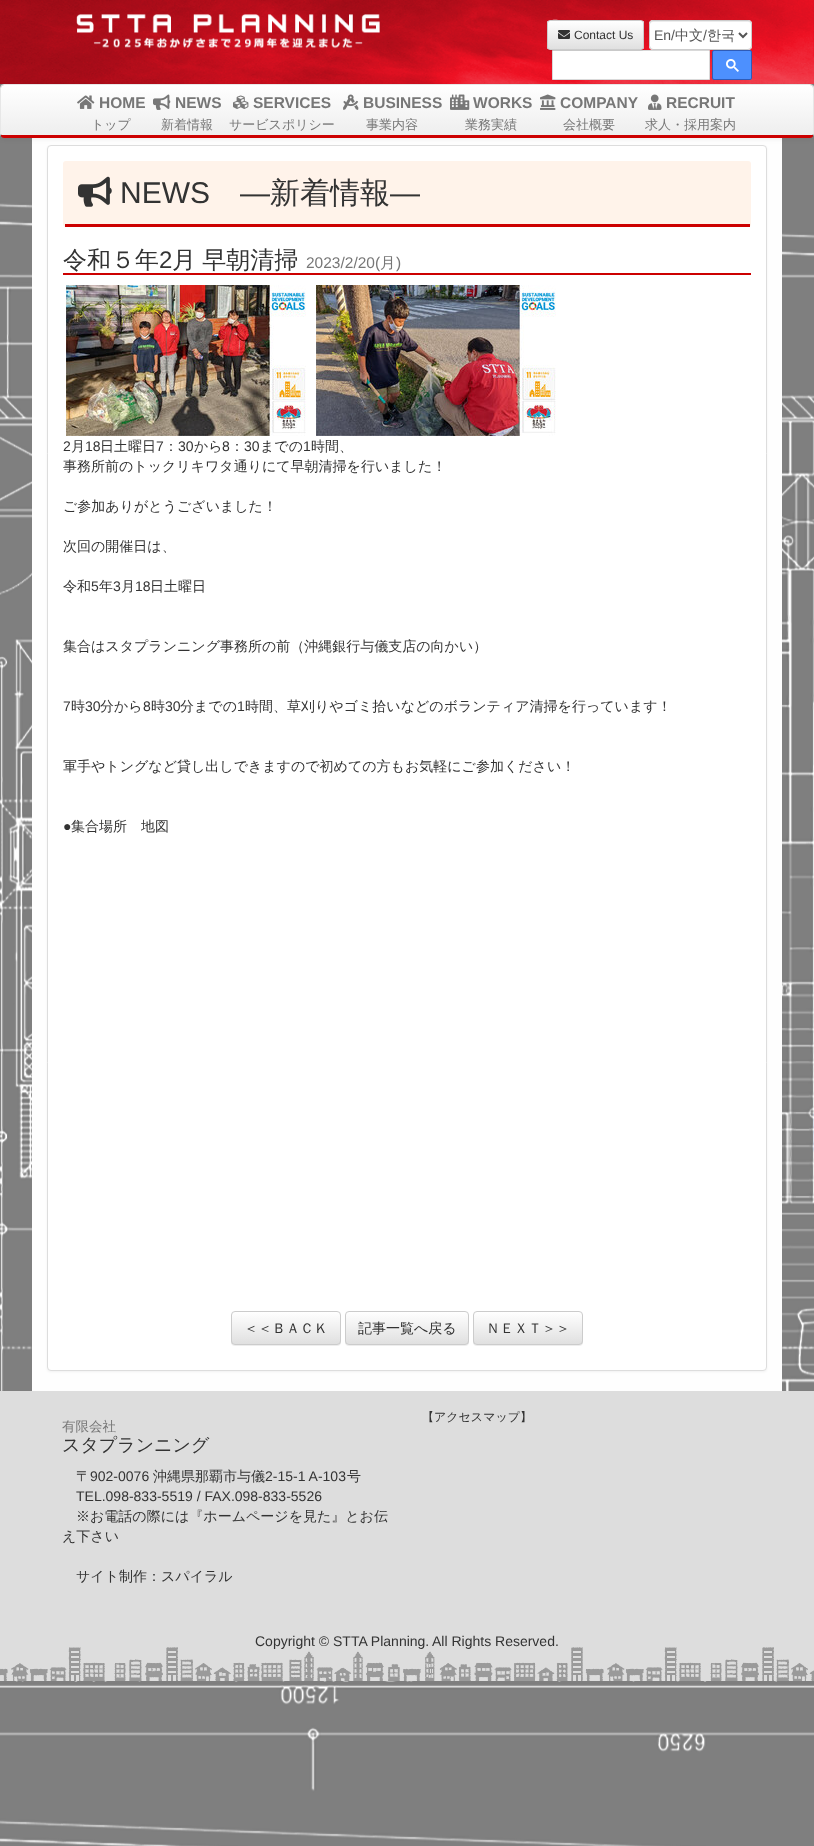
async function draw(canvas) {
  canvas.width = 814;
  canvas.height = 1846;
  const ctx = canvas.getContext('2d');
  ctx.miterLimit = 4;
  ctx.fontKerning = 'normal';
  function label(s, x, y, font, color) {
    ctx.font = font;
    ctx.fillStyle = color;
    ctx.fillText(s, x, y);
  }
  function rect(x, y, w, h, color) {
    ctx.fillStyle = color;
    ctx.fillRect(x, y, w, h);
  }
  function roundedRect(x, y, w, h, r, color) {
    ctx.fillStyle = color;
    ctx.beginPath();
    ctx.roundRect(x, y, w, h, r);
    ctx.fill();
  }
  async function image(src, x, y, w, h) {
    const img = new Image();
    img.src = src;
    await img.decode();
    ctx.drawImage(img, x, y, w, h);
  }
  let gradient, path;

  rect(0, 0, 814, 1846, '#fff');
  await image('assets/img1.png', 0, 84, 814, 1762);
  await image('assets/img2.png', 0, 0, 814, 84);
  await image('assets/img3.png', 76, 14, 304, 35);
  ctx.beginPath();
  ctx.rect(552.5, 50.5, 157, 29);
  ctx.fill();
  ctx.strokeStyle = '#d9d9d9';
  ctx.stroke();
  ctx.fillStyle = '#00000012';
  ctx.filter = 'blur(0.5px)';
  ctx.beginPath();
  ctx.roundRect(547, 21, 97, 30, 3);
  ctx.fill();
  ctx.filter = 'none';
  ctx.save();
  ctx.beginPath();
  ctx.roundRect(547, 20, 97, 30, 3);
  ctx.clip();
  gradient = ctx.createLinearGradient(596, 21, 596, 49);
  gradient.addColorStop(0, '#fff');
  gradient.addColorStop(1, '#e0e0e0');
  ctx.fillStyle = gradient;
  ctx.fillRect(547, 21, 97, 28);
  ctx.restore();
  ctx.fillStyle = '#fefefe';
  path = new Path2D('M550 22H641C642 22 643 23 643 24C643 23 643 21 641 21H565C563 21 548 17 548 24C548 23 549 22 550 22Z');
  ctx.fill(path);
  ctx.beginPath();
  ctx.roundRect(547.5, 20.5, 96, 29, 2.5);
  ctx.strokeStyle = '#ccc';
  ctx.stroke();
  await image('assets/img4.png', 558, 30, 12, 9);
  label('Contact Us', 574, 39, '12px Liberation Sans', '#333');
  roundedRect(649, 20, 103, 30, 4, '#fff');
  ctx.fillStyle = '#ececec';
  path = new Path2D('M653 22H748C750 22 751 23 751 25C751 17 735 21 732 21H669C666 21 650 17 650 25C650 23 651 22 653 22Z');
  ctx.fill(path);
  ctx.beginPath();
  ctx.roundRect(649.5, 20.5, 102, 29, 3.5);
  ctx.stroke();
  path = new Path2D('M739 33L743 37L747 33');
  ctx.strokeStyle = '#555';
  ctx.lineWidth = 2;
  ctx.stroke(path);
  label('En/', 654, 40, '14px Liberation Sans', '#555');
  label('中文', 675, 40, '500 14px WenQuanYi Zen Hei', '#555');
  label('/', 703, 40, '14px Liberation Sans', '#555');
  label('한국', 707, 40, '500 14px WenQuanYi Zen Hei', '#555');
  ctx.fillStyle = '#4d90fe';
  ctx.beginPath();
  ctx.roundRect(712.5, 50.5, 39, 29, 1.5);
  ctx.fill();
  ctx.strokeStyle = '#2f5bb7';
  ctx.lineWidth = 1;
  ctx.stroke();
  await image('assets/img5.png', 726, 59, 13, 13);
  rect(32, 138, 750, 1253, '#fefefe');
  ctx.fillStyle = '#0000000d';
  ctx.filter = 'blur(1px)';
  ctx.beginPath();
  ctx.roundRect(47, 146, 720, 1226, 4);
  ctx.fill();
  ctx.filter = 'none';
  ctx.fillStyle = '#fff';
  ctx.beginPath();
  ctx.roundRect(47.5, 145.5, 719, 1225, 3.5);
  ctx.fill();
  ctx.strokeStyle = '#ddd';
  ctx.stroke();
  ctx.fillStyle = '#00000012';
  ctx.filter = 'blur(2.5px)';
  ctx.beginPath();
  ctx.roundRect(0, 85, 814, 54, 4);
  ctx.fill();
  ctx.filter = 'none';
  gradient = ctx.createLinearGradient(407, 85, 407, 135);
  gradient.addColorStop(0, '#fff');
  gradient.addColorStop(1, '#eee');
  ctx.fillStyle = gradient;
  path = new Path2D('M4 85H810C812 85 813 86 813 88V134C813 135 812 135 810 135H4C2 135 1 135 1 134V88C1 86 2 85 4 85Z');
  ctx.fill(path);
  ctx.fillStyle = '#ffffff26';
  path = new Path2D('M4 86H810C812 86 813 87 813 89C813 87 812 85 810 85H4C2 85 1 87 1 89C1 87 2 86 4 86Z');
  ctx.fill(path);
  ctx.fillStyle = '#e7e7e7';
  path = new Path2D('M4 84L1 85L2 86L4 85H810L812 86L813 85L810 84Z');
  ctx.fill(path);
  path = new Path2D('M814 134V88C814 87 814 86 813 85L812 86L813 88V135V136Z');
  ctx.fill(path);
  ctx.fillStyle = '#c00';
  path = new Path2D('M4 138H810C811 138 813 137 813 136V135H810H4H1V136C1 137 3 138 4 138Z');
  ctx.fill(path);
  ctx.fillStyle = '#e7e7e7';
  path = new Path2D('M0 88V134L1 136V135V88L2 86L1 85Z');
  ctx.fill(path);
  await image('assets/img6.png', 77, 95, 18, 14);
  label('HOME', 99, 108, 'bold 15.5px Liberation Sans', '#777');
  label('トップ', 91, 129, '500 13px WenQuanYi Zen Hei', '#777');
  await image('assets/img7.png', 153, 94, 18, 16);
  label('NEWS', 175, 108, 'bold 15.5px Liberation Sans', '#777');
  label('新着情報', 161, 129, '500 13px WenQuanYi Zen Hei', '#777');
  await image('assets/img8.png', 233, 95, 16, 14);
  label('SERVICES', 253, 108, 'bold 15.5px Liberation Sans', '#777');
  label('サービスポリシー', 229, 129, '500 13px WenQuanYi Zen Hei', '#777');
  await image('assets/img9.png', 343, 94, 16, 16);
  label('BUSINESS', 363, 108, 'bold 15.5px Liberation Sans', '#777');
  label('事業内容', 366, 129, '500 13px WenQuanYi Zen Hei', '#777');
  await image('assets/img10.png', 450, 94, 20, 16);
  label('WORKS', 473, 108, 'bold 15.5px Liberation Sans', '#777');
  label('業務実績', 465, 129, '500 13px WenQuanYi Zen Hei', '#777');
  await image('assets/img11.png', 540, 94, 16, 16);
  label('COMPANY', 560, 108, 'bold 15.5px Liberation Sans', '#777');
  label('会社概要', 563, 129, '500 13px WenQuanYi Zen Hei', '#777');
  await image('assets/img12.png', 648, 94, 14, 16);
  label('RECRUIT', 666, 108, 'bold 15.5px Liberation Sans', '#777');
  label('求人・採用案内', 645, 129, '500 13px WenQuanYi Zen Hei', '#777');
  roundedRect(63, 161, 688, 66, 3, '#fff3ea');
  rect(65, 224, 685, 3, '#c00');
  await image('assets/img13.png', 78, 176, 34, 31);
  label('NEWS', 120, 203, '30px Liberation Sans', '#333');
  label('―', 240, 203, '30px Liberation Sans', '#333');
  label('新着情報', 270, 203, '500 30px WenQuanYi Zen Hei', '#333');
  label('―', 390, 203, '30px Liberation Sans', '#333');
  rect(63, 273, 688, 2, '#c00');
  label('令和５年', 63, 268, '500 24px WenQuanYi Zen Hei', '#333');
  label('2', 159, 268, '24px Liberation Sans', '#333');
  ctx.wordSpacing = '-1px';
  label('月 早朝清掃', 172, 268, '500 24px WenQuanYi Zen Hei', '#333');
  ctx.wordSpacing = '0px';
  label('2023/2/20(', 306, 268, '15.5px Liberation Sans', '#777');
  label('月', 380, 268, '500 15.5px WenQuanYi Zen Hei', '#777');
  label(')', 396, 268, '15.5px Liberation Sans', '#777');
  await image('assets/img14.png', 66, 285, 240, 151);
  await image('assets/img15.png', 316, 285, 240, 151);
  label('2', 63, 451, '14px Liberation Sans', '#333');
  label('月', 71, 451, '500 14px WenQuanYi Zen Hei', '#333');
  label('18', 85, 451, '14px Liberation Sans', '#333');
  label('日土曜日', 100, 451, '500 14px WenQuanYi Zen Hei', '#333');
  label('7', 156, 451, '14px Liberation Sans', '#333');
  label('：', 164, 451, '500 14px WenQuanYi Zen Hei', '#333');
  label('30', 178, 451, '14px Liberation Sans', '#333');
  label('から', 194, 451, '500 14px WenQuanYi Zen Hei', '#333');
  label('8', 222, 451, '14px Liberation Sans', '#333');
  label('：', 230, 451, '500 14px WenQuanYi Zen Hei', '#333');
  label('30', 244, 451, '14px Liberation Sans', '#333');
  label('までの', 260, 451, '500 14px WenQuanYi Zen Hei', '#333');
  label('1', 303, 451, '14px Liberation Sans', '#333');
  label('時間、', 311, 451, '500 14px WenQuanYi Zen Hei', '#333');
  label('事務所前のトックリキワタ通りにて早朝清掃を行いました！', 63, 471, '500 14px WenQuanYi Zen Hei', '#333');
  label('ご参加ありがとうございました！', 63, 511, '500 14px WenQuanYi Zen Hei', '#333');
  label('次回の開催日は、', 63, 551, '500 14px WenQuanYi Zen Hei', '#333');
  label('令和', 63, 591, '500 14px WenQuanYi Zen Hei', '#333');
  label('5', 91, 591, '14px Liberation Sans', '#333');
  label('年', 99, 591, '500 14px WenQuanYi Zen Hei', '#333');
  label('3', 113, 591, '14px Liberation Sans', '#333');
  label('月', 121, 591, '500 14px WenQuanYi Zen Hei', '#333');
  label('18', 135, 591, '14px Liberation Sans', '#333');
  label('日土曜日', 150, 591, '500 14px WenQuanYi Zen Hei', '#333');
  label('集合はスタプランニング事務所の前（沖縄銀行与儀支店の向かい）', 63, 651, '500 14px WenQuanYi Zen Hei', '#333');
  label('7', 63, 711, '14px Liberation Sans', '#333');
  label('時', 71, 711, '500 14px WenQuanYi Zen Hei', '#333');
  label('30', 85, 711, '14px Liberation Sans', '#333');
  label('分から', 100, 711, '500 14px WenQuanYi Zen Hei', '#333');
  label('8', 143, 711, '14px Liberation Sans', '#333');
  label('時', 151, 711, '500 14px WenQuanYi Zen Hei', '#333');
  label('30', 165, 711, '14px Liberation Sans', '#333');
  label('分までの', 180, 711, '500 14px WenQuanYi Zen Hei', '#333');
  label('1', 237, 711, '14px Liberation Sans', '#333');
  label('時間、草刈りやゴミ拾いなどのボランティア清掃を行っています！', 245, 711, '500 14px WenQuanYi Zen Hei', '#333');
  label('軍手やトングなど貸し出しできますので初めての方もお気軽にご参加ください！', 63, 771, '500 14px WenQuanYi Zen Hei', '#333');
  label('●', 63, 831, '14px Liberation Sans', '#333');
  label('集合場所　地図', 71, 831, '500 14px WenQuanYi Zen Hei', '#333');
  ctx.fillStyle = '#00000012';
  ctx.filter = 'blur(0.5px)';
  ctx.beginPath();
  ctx.roundRect(231, 1312, 110, 34, 4);
  ctx.fill();
  ctx.filter = 'none';
  ctx.save();
  ctx.beginPath();
  ctx.roundRect(231, 1311, 110, 34, 4);
  ctx.clip();
  gradient = ctx.createLinearGradient(286, 1312, 286, 1344);
  gradient.addColorStop(0, '#fff');
  gradient.addColorStop(1, '#e0e0e0');
  ctx.fillStyle = gradient;
  ctx.fillRect(231, 1312, 110, 32);
  ctx.restore();
  ctx.beginPath();
  ctx.roundRect(231.5, 1311.5, 109, 33, 3.5);
  ctx.strokeStyle = '#ccc';
  ctx.stroke();
  label('＜＜ＢＡＣＫ', 244, 1333, '500 14px WenQuanYi Zen Hei', '#333');
  ctx.fillStyle = '#00000012';
  ctx.filter = 'blur(0.5px)';
  ctx.beginPath();
  ctx.roundRect(345, 1312, 124, 34, 4);
  ctx.fill();
  ctx.filter = 'none';
  ctx.save();
  ctx.beginPath();
  ctx.roundRect(345, 1311, 124, 34, 4);
  ctx.clip();
  gradient = ctx.createLinearGradient(407, 1312, 407, 1344);
  gradient.addColorStop(0, '#fff');
  gradient.addColorStop(1, '#e0e0e0');
  ctx.fillStyle = gradient;
  ctx.fillRect(345, 1312, 124, 32);
  ctx.restore();
  ctx.beginPath();
  ctx.roundRect(345.5, 1311.5, 123, 33, 3.5);
  ctx.stroke();
  label('記事一覧へ戻る', 358, 1333, '500 14px WenQuanYi Zen Hei', '#333');
  ctx.fillStyle = '#00000012';
  ctx.filter = 'blur(0.5px)';
  ctx.beginPath();
  ctx.roundRect(473, 1312, 110, 34, 4);
  ctx.fill();
  ctx.filter = 'none';
  ctx.save();
  ctx.beginPath();
  ctx.roundRect(473, 1311, 110, 34, 4);
  ctx.clip();
  gradient = ctx.createLinearGradient(528, 1312, 528, 1344);
  gradient.addColorStop(0, '#fff');
  gradient.addColorStop(1, '#e0e0e0');
  ctx.fillStyle = gradient;
  ctx.fillRect(473, 1312, 110, 32);
  ctx.restore();
  ctx.beginPath();
  ctx.roundRect(473.5, 1311.5, 109, 33, 3.5);
  ctx.stroke();
  label('ＮＥＸＴ＞＞', 486, 1333, '500 14px WenQuanYi Zen Hei', '#333');
  rect(0, 1391, 814, 290, '#ddd');
  await image('assets/img16.png', 0, 1647, 814, 34);
  label('【アクセスマップ】', 422, 1421, '500 12px WenQuanYi Zen Hei', '#333');
  label('有限会社', 62, 1431, '500 13.5px WenQuanYi Zen Hei', '#777');
  label('スタプランニング', 62, 1451, '500 18px WenQuanYi Zen Hei', '#333');
  label('〒', 76, 1481, '500 14px WenQuanYi Zen Hei', '#333');
  label('902-0076', 90, 1481, '14px Liberation Sans', '#333');
  label('沖縄県那覇市与儀', 153, 1481, '500 14px WenQuanYi Zen Hei', '#333');
  label('2-15-1 A-103', 265, 1481, '14px Liberation Sans', '#333');
  label('号', 347, 1481, '500 14px WenQuanYi Zen Hei', '#333');
  label('TEL.098-833-5519 / FAX.098-833-5526', 76, 1501, '14px Liberation Sans', '#333');
  label('※お電話の際には『ホームページを見た』とお伝', 76, 1521, '500 14px WenQuanYi Zen Hei', '#333');
  label('え下さい', 62, 1541, '500 14px WenQuanYi Zen Hei', '#333');
  label('サイト制作：スパイラル', 76, 1581, '500 14px WenQuanYi Zen Hei', '#333');
  label('Copyright © STTA Planning.', 255, 1646, '14px Liberation Sans', '#333');
  label('All Rights Reserved.', 432, 1646, '14px Liberation Sans', '#333');
}

draw(document.querySelector('canvas'));
